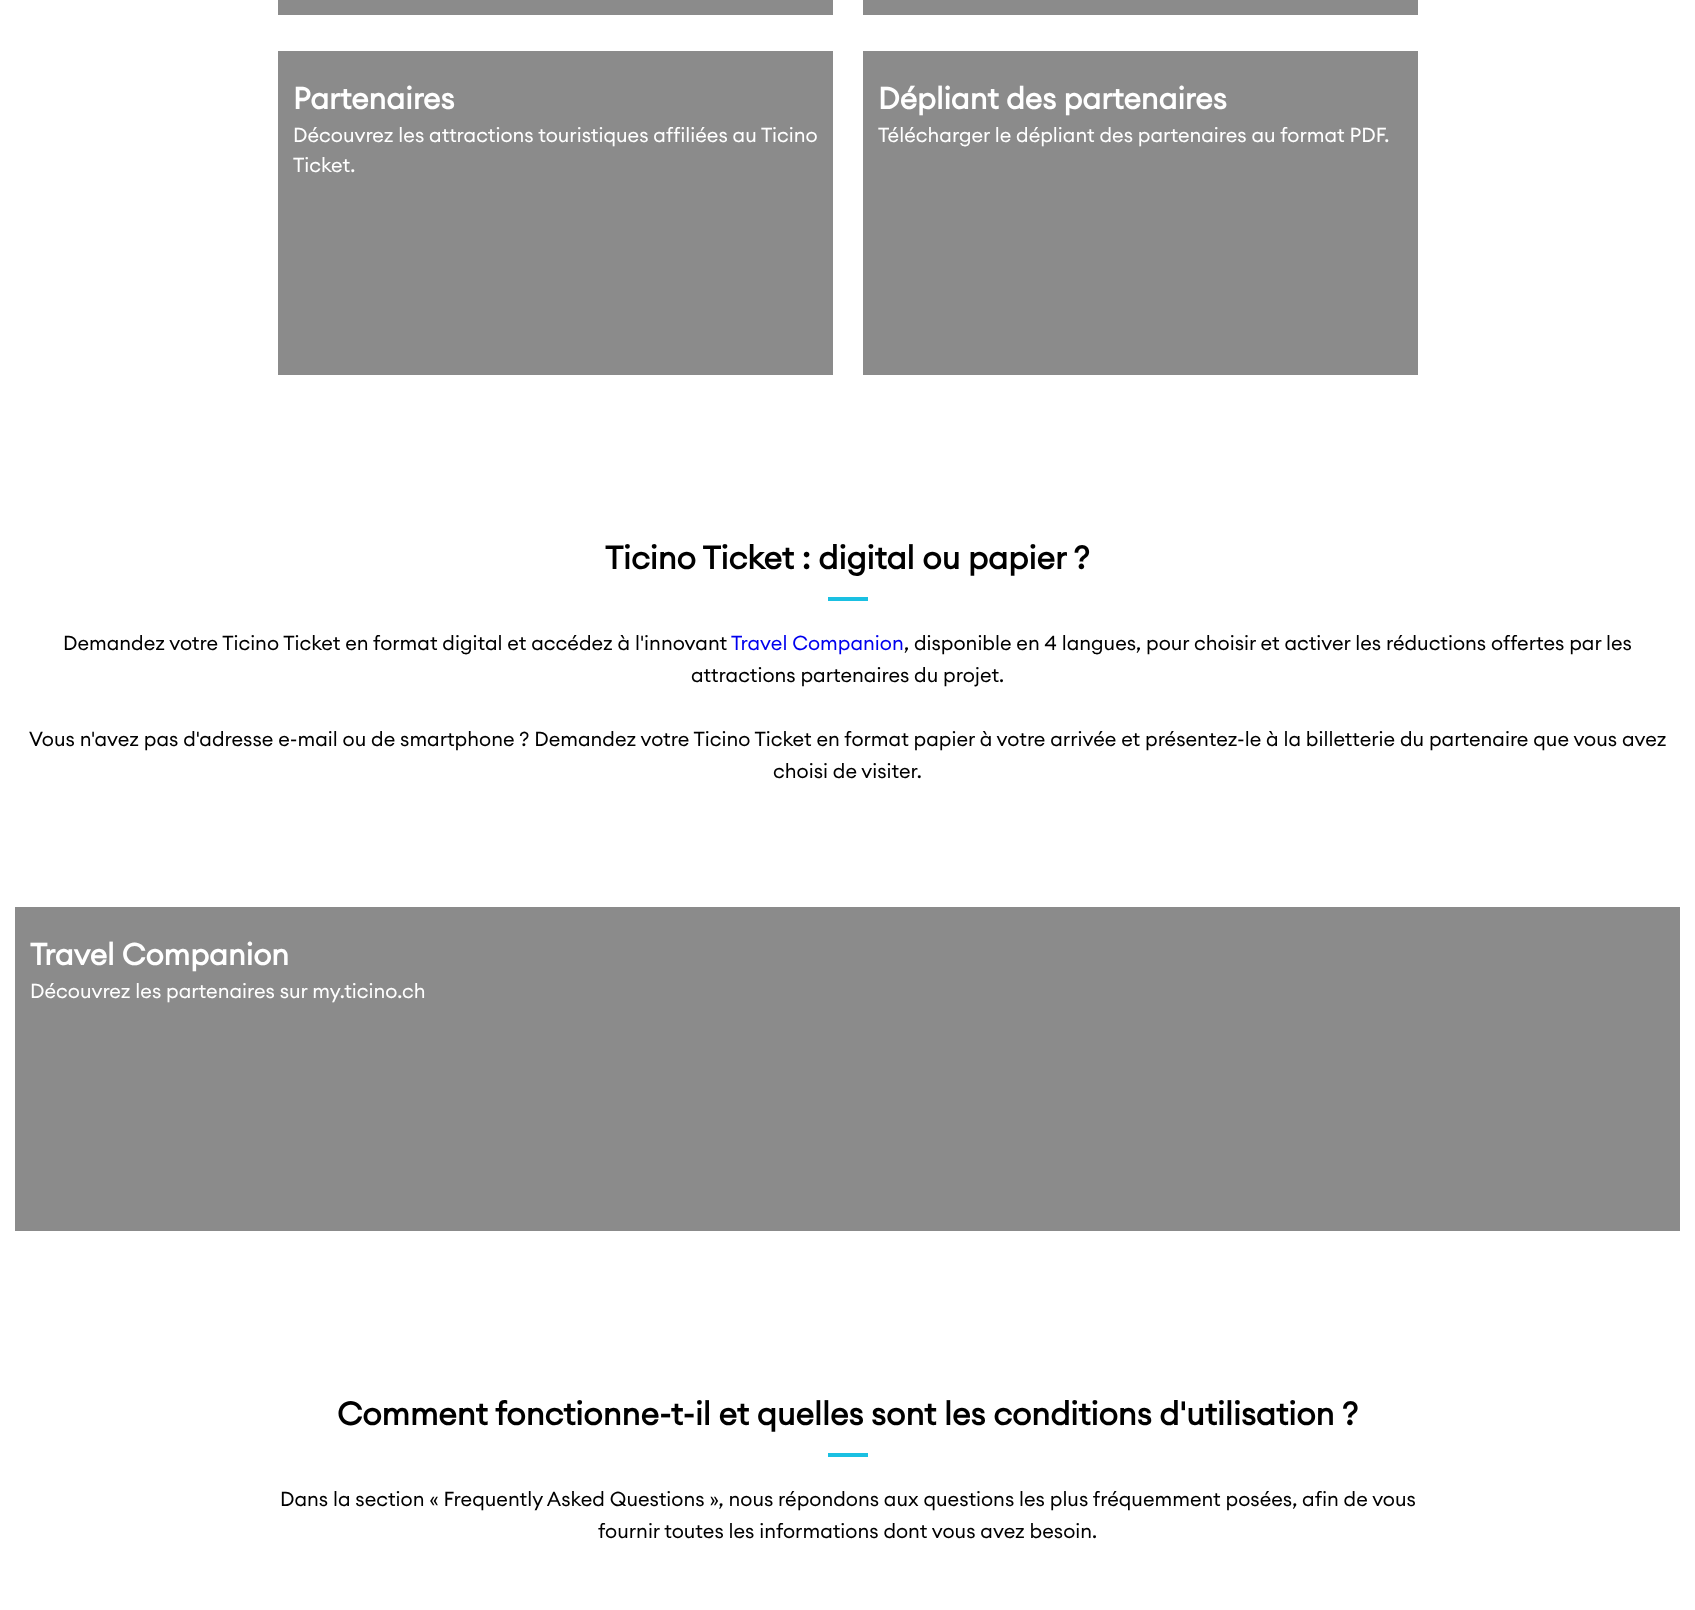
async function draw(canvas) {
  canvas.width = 1695;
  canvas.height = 1610;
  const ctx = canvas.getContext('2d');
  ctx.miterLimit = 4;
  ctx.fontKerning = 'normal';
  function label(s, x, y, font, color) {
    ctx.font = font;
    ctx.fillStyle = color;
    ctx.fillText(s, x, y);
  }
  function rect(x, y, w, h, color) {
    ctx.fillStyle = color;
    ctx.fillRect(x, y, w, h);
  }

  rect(0, 0, 1695, 1610, '#fff');
  rect(278, 0, 555, 15, '#8b8b8b');
  rect(863, 0, 555, 15, '#8b8b8b');
  rect(278, 51, 555, 324, '#8b8b8b');
  label('Partenaires', 293, 109, 'bold 30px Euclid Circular', '#fff');
  label('Découvrez les attractions touristiques affiliées au Ticino', 293, 142, '20px Euclid Circular', '#fff');
  label('Ticket.', 293, 172, '20px Euclid Circular', '#fff');
  rect(863, 51, 555, 324, '#8b8b8b');
  label('Dépliant des partenaires', 878, 109, 'bold 30px Euclid Circular', '#fff');
  label('Télécharger le dépliant des partenaires au format PDF.', 878, 142, '20px Euclid Circular', '#fff');
  label('Ticino Ticket : digital ou papier ?', 605, 569, 'bold 32px Euclid Circular', '#000');
  rect(828, 597, 40, 4, '#1ac0e2');
  label('Demandez votre Ticino Ticket en format digital et accédez à l\'innovant', 63, 650, '20px Euclid Circular', '#000');
  label('Travel Companion', 731, 650, '20px Euclid Circular', '#00e');
  label(', disponible en 4 langues, pour choisir et activer les réductions offertes par les', 904, 650, '20px Euclid Circular', '#000');
  label('attractions partenaires du projet.', 691, 682, '20px Euclid Circular', '#000');
  label('Vous n\'avez pas d\'adresse e-mail ou de smartphone ? Demandez votre Ticino Ticket en format papier à votre arrivée et présentez-le à la billetterie du partenaire que vous avez', 29, 746, '20px Euclid Circular', '#000');
  label('choisi de visiter.', 773, 778, '20px Euclid Circular', '#000');
  rect(15, 907, 1665, 324, '#8b8b8b');
  label('Travel Companion', 30, 965, 'bold 30px Euclid Circular', '#fff');
  label('Découvrez les partenaires sur my.ticino.ch', 30, 998, '20px Euclid Circular', '#fff');
  label('Comment fonctionne-t-il et quelles sont les conditions d\'utilisation ?', 337, 1425, 'bold 32px Euclid Circular', '#000');
  rect(828, 1453, 40, 4, '#1ac0e2');
  label('Dans la section « Frequently Asked Questions », nous répondons aux questions les plus fréquemment posées, afin de vous', 280, 1506, '20px Euclid Circular', '#000');
  label('fournir toutes les informations dont vous avez besoin.', 598, 1538, '20px Euclid Circular', '#000');
}

draw(document.querySelector('canvas'));
